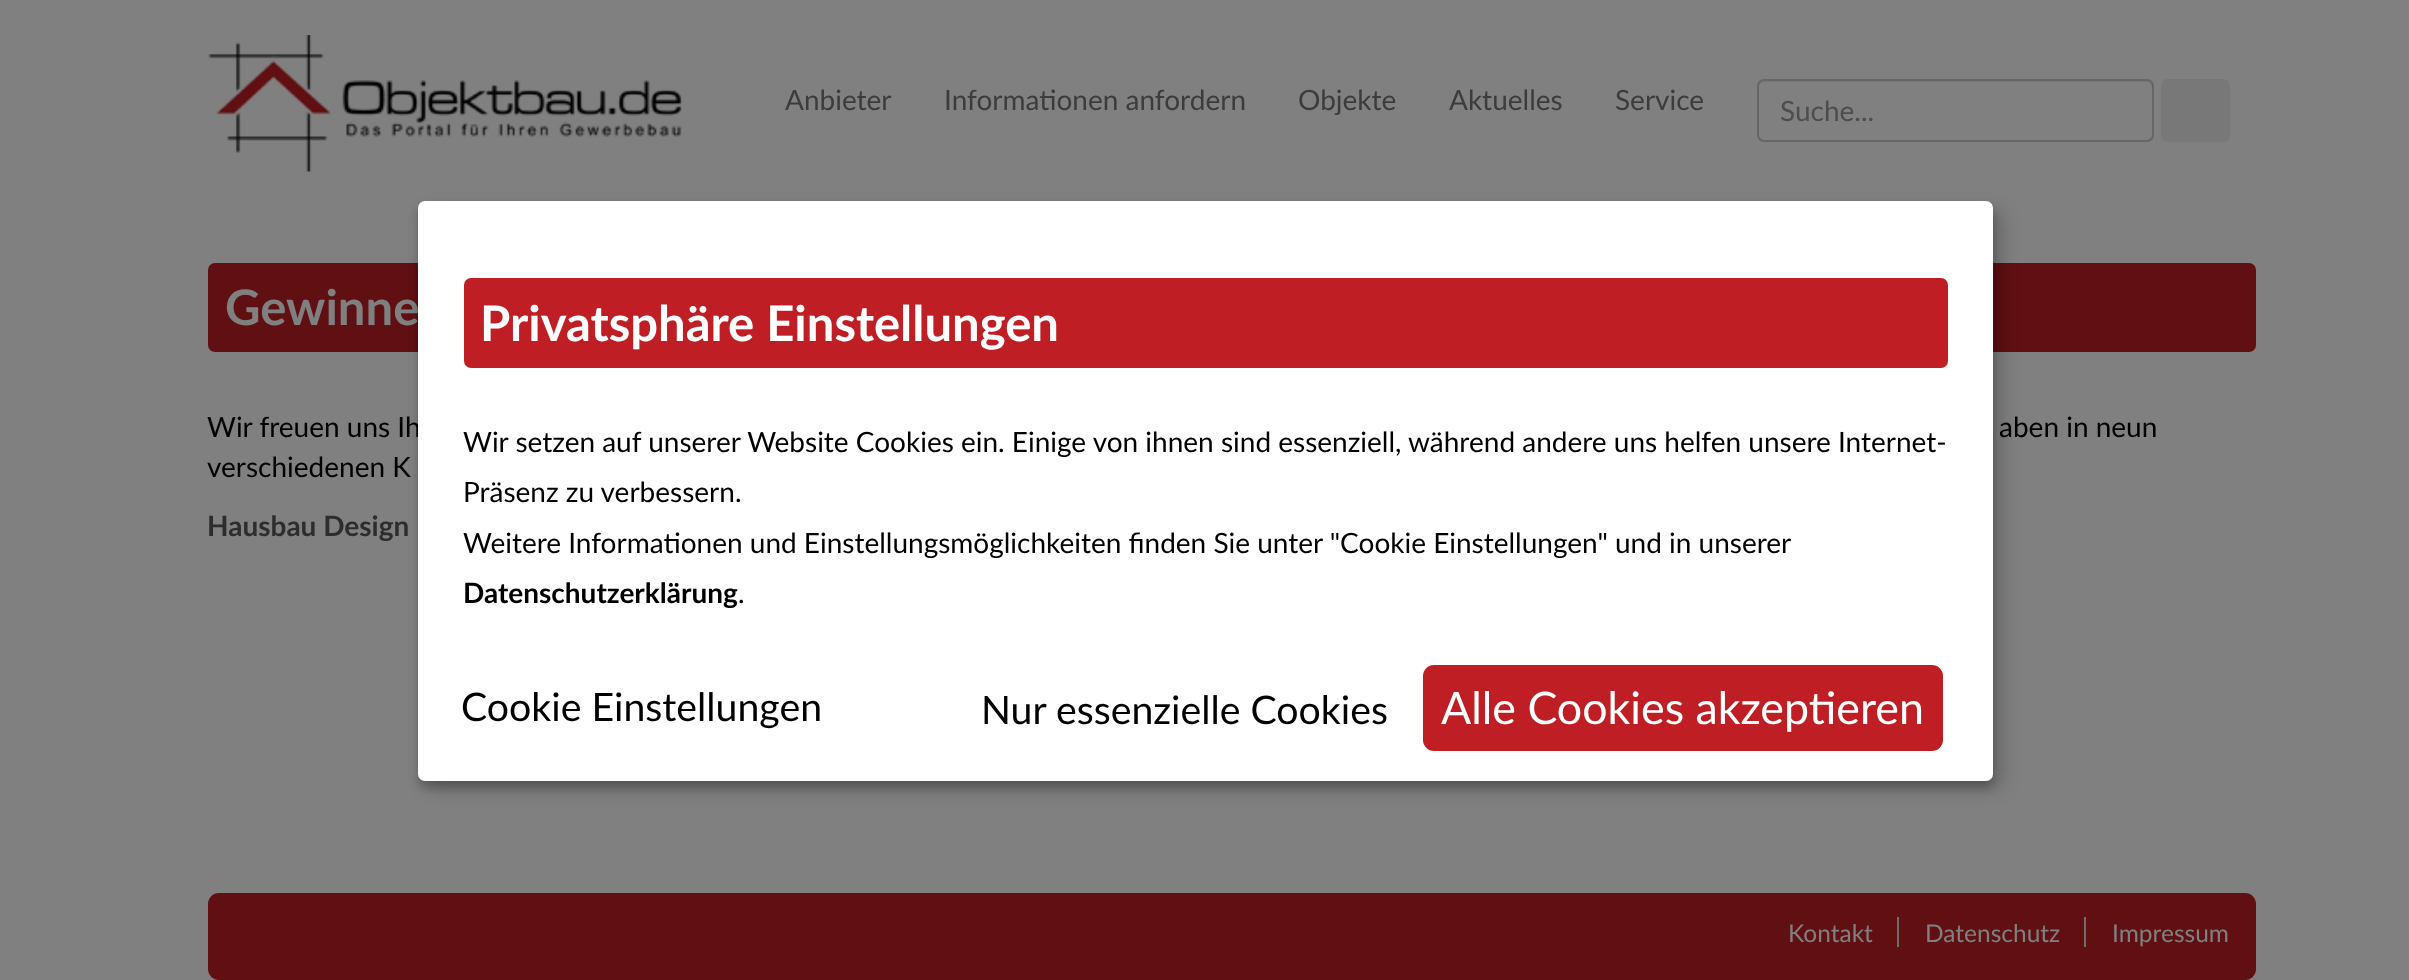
async function draw(canvas) {
  canvas.width = 2409;
  canvas.height = 980;
  const ctx = canvas.getContext('2d');
  ctx.miterLimit = 4;
  ctx.fontKerning = 'normal';
  function label(s, x, y, font, color) {
    ctx.font = font;
    ctx.fillStyle = color;
    ctx.fillText(s, x, y);
  }
  function rect(x, y, w, h, color) {
    ctx.fillStyle = color;
    ctx.fillRect(x, y, w, h);
  }
  function roundedRect(x, y, w, h, r, color) {
    ctx.fillStyle = color;
    ctx.beginPath();
    ctx.roundRect(x, y, w, h, r);
    ctx.fill();
  }
  async function image(src, x, y, w, h) {
    const img = new Image();
    img.src = src;
    await img.decode();
    ctx.drawImage(img, x, y, w, h);
  }
  let path;

  rect(0, 0, 2409, 980, '#808080');
  await image('assets/img1.png', 208, 35, 474, 137);
  label('Anbieter', 785, 110, '28px Lato', '#3c3c3c');
  label('Informationen anfordern', 944, 110, '28px Lato', '#3c3c3c');
  label('Objekte', 1298, 110, '28px Lato', '#3c3c3c');
  label('Aktuelles', 1449, 110, '28px Lato', '#3c3c3c');
  label('Service', 1615, 110, '28px Lato', '#3c3c3c');
  ctx.fillStyle = '#767676';
  path = new Path2D('M1764 82H2147C2150 82 2152 85 2152 88V136V139C2152 138 2153 136 2153 135V86C2153 83 2151 81 2148 81H1764C1761 81 1759 83 1759 86V88C1759 85 1761 82 1764 82Z');
  ctx.fill(path);
  ctx.beginPath();
  ctx.roundRect(1758, 80, 395, 61, 6);
  ctx.strokeStyle = '#666';
  ctx.lineWidth = 2;
  ctx.stroke();
  label('Suche...', 1780, 121, '28px Lato', '#4d4d4d');
  roundedRect(2161, 79, 69, 63, 7, '#787878');
  roundedRect(208, 263, 2048, 89, 7, '#601012');
  label('Gewinne', 225, 325, 'bold 49px Lato', '#808080');
  label('Wir freuen uns Ih', 207, 437, '28px Lato', '#000');
  label('aben in neun', 1999, 437, '28px Lato', '#000');
  label('verschiedenen K', 207, 477, '28px Lato', '#000');
  label('Hausbau Design', 207, 536, 'bold 28px Lato', '#2d2d2e');
  roundedRect(208, 893, 2048, 87, 11, '#601012');
  label('Kontakt', 1788, 942, '24.5px Lato', '#808080');
  rect(1897, 917, 2, 30, '#6d6d6d');
  label('Datenschutz', 1925, 942, '24.5px Lato', '#808080');
  rect(2084, 917, 2, 30, '#6d6d6d');
  label('Impressum', 2112, 942, '24.5px Lato', '#808080');
  ctx.fillStyle = '#00000030';
  ctx.filter = 'blur(9px)';
  ctx.beginPath();
  ctx.roundRect(427, 210, 1575, 579, 7);
  ctx.fill();
  ctx.filter = 'none';
  ctx.fillStyle = '#00000033';
  ctx.filter = 'blur(5px)';
  ctx.beginPath();
  ctx.roundRect(418, 208, 1575, 580, 7);
  ctx.fill();
  ctx.filter = 'none';
  roundedRect(418, 201, 1575, 580, 7, '#fff');
  roundedRect(464, 278, 1484, 90, 7, '#bf1f24');
  label('Privatsphäre Einstellungen', 480, 341, 'bold 49px Lato', '#fff');
  label('Wir setzen auf unserer Website Cookies ein. Einige von ihnen sind essenziell, während andere uns helfen unsere Internet-', 463, 452, '28px Lato', '#000');
  label('Präsenz zu verbessern.', 463, 502, '28px Lato', '#000');
  label('Weitere Informationen und Einstellungsmöglichkeiten finden Sie unter "Cookie Einstellungen" und in unserer', 463, 553, '28px Lato', '#000');
  label('Datenschutzerklärung', 463, 603, 'bold 28px Lato', '#000');
  label('.', 738, 603, '28px Lato', '#000');
  label('Cookie Einstellungen', 461, 721, '39.25px Lato', '#000');
  label('Nur essenzielle Cookies', 981, 724, '39.25px Lato', '#000');
  roundedRect(1423, 665, 520, 86, 11, '#bf1f24');
  label('Alle Cookies akzeptieren', 1441, 724, '44.75px Lato', '#fff');
}

draw(document.querySelector('canvas'));
